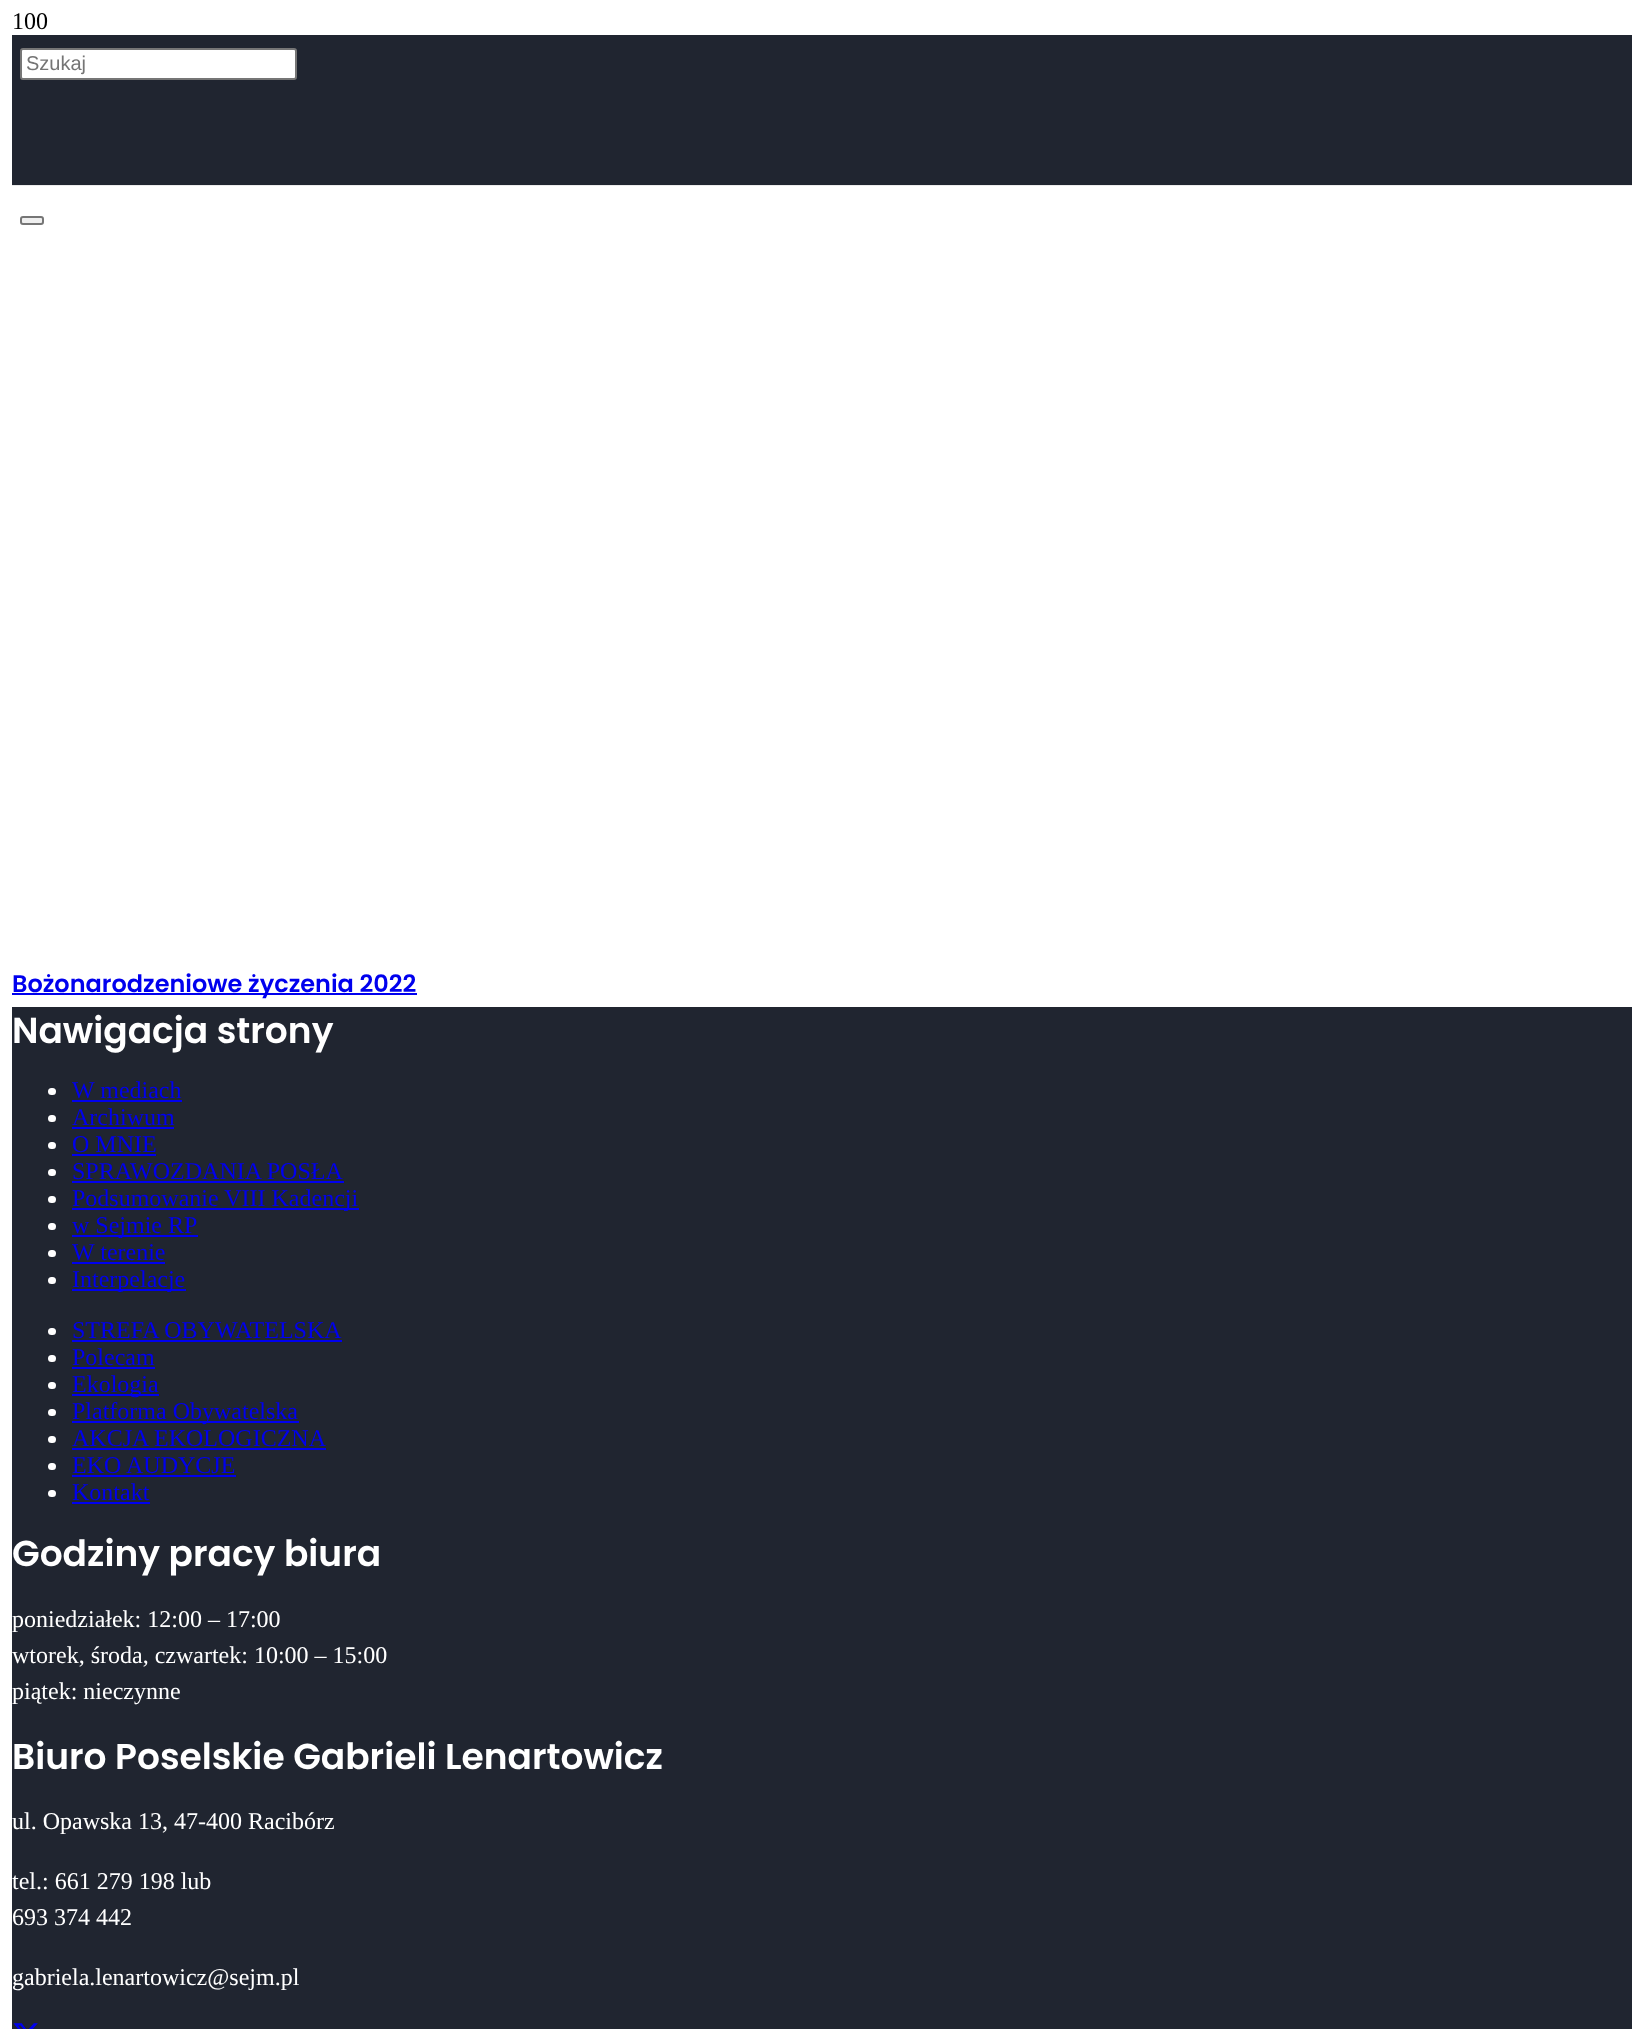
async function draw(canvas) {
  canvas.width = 1643;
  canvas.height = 2029;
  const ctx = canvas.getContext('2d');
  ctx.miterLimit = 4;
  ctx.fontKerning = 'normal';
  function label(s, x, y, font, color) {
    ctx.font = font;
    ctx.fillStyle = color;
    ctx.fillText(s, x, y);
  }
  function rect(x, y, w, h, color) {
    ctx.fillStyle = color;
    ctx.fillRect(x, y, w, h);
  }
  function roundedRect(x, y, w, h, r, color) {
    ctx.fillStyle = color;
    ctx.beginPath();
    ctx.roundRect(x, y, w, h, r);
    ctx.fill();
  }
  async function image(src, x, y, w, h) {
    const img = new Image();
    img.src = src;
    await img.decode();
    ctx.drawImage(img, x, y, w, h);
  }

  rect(0, 0, 1643, 2029, '#fff');
  label('100', 12, 29, '24px Liberation Serif', '#000');
  rect(12, 185, 1620, 1, '#ebebeb');
  rect(12, 35, 1620, 150, '#202530');
  ctx.fillStyle = '#fff';
  ctx.beginPath();
  ctx.roundRect(21, 49, 275, 30, 2);
  ctx.fill();
  ctx.strokeStyle = '#767676';
  ctx.lineWidth = 2;
  ctx.stroke();
  label('Szukaj', 26, 70, '20px Liberation Sans', '#757575');
  ctx.fillStyle = '#efefef';
  ctx.beginPath();
  ctx.roundRect(21, 217, 22, 7, 2);
  ctx.fill();
  ctx.stroke();
  rect(12, 993, 405, 2, '#00e');
  label('Bożonarodzeniowe życzenia 2022', 12, 992, '600 24px Poppins', '#00e');
  rect(12, 1007, 1620, 1022, '#202530');
  label('Nawigacja strony', 12, 1043, '600 36px Poppins', '#fff');
  roundedRect(48, 1088, 8, 7, 3.5, '#fff');
  label('W mediach', 72, 1098, '24px Liberation Serif', '#00e');
  rect(72, 1100, 110, 2, '#00e');
  roundedRect(48, 1115, 8, 7, 3.5, '#fff');
  label('Archiwum', 72, 1125, '24px Liberation Serif', '#00e');
  rect(72, 1127, 102, 2, '#00e');
  roundedRect(48, 1142, 8, 7, 3.5, '#fff');
  label('O MNIE', 72, 1152, '24px Liberation Serif', '#00e');
  rect(72, 1154, 84, 2, '#00e');
  roundedRect(48, 1169, 8, 7, 3.5, '#fff');
  label('SPRAWOZDANIA POSŁA', 72, 1179, '24px Liberation Serif', '#00e');
  rect(72, 1181, 272, 2, '#00e');
  roundedRect(48, 1196, 8, 7, 3.5, '#fff');
  rect(72, 1208, 287, 2, '#00e');
  label('Podsumowanie VIII Kadencji', 72, 1206, '24px Liberation Serif', '#00e');
  roundedRect(48, 1223, 8, 7, 3.5, '#fff');
  rect(72, 1235, 126, 2, '#00e');
  label('w Sejmie RP', 72, 1233, '24px Liberation Serif', '#00e');
  roundedRect(48, 1250, 8, 7, 3.5, '#fff');
  label('W terenie', 72, 1260, '24px Liberation Serif', '#00e');
  rect(72, 1262, 93, 2, '#00e');
  roundedRect(48, 1277, 8, 7, 3.5, '#fff');
  rect(72, 1289, 114, 2, '#00e');
  label('Interpelacje', 72, 1287, '24px Liberation Serif', '#00e');
  roundedRect(48, 1328, 8, 7, 3.5, '#fff');
  label('STREFA OBYWATELSKA', 72, 1338, '24px Liberation Serif', '#00e');
  rect(72, 1340, 270, 2, '#00e');
  roundedRect(48, 1355, 8, 7, 3.5, '#fff');
  label('Polecam', 72, 1365, '24px Liberation Serif', '#00e');
  rect(72, 1367, 83, 2, '#00e');
  roundedRect(48, 1382, 8, 7, 3.5, '#fff');
  rect(72, 1394, 87, 2, '#00e');
  label('Ekologia', 72, 1392, '24px Liberation Serif', '#00e');
  roundedRect(48, 1409, 8, 7, 3.5, '#fff');
  rect(72, 1421, 227, 2, '#00e');
  label('Platforma Obywatelska', 72, 1419, '24px Liberation Serif', '#00e');
  roundedRect(48, 1436, 8, 7, 3.5, '#fff');
  label('AKCJA EKOLOGICZNA', 72, 1446, '24px Liberation Serif', '#00e');
  rect(72, 1448, 254, 2, '#00e');
  roundedRect(48, 1463, 8, 7, 3.5, '#fff');
  label('EKO AUDYCJE', 72, 1473, '24px Liberation Serif', '#00e');
  rect(72, 1475, 164, 2, '#00e');
  roundedRect(48, 1490, 8, 7, 3.5, '#fff');
  label('Kontakt', 72, 1500, '24px Liberation Serif', '#00e');
  rect(72, 1502, 78, 2, '#00e');
  label('Godziny pracy biura', 12, 1566, '600 36px Poppins', '#fff');
  label('poniedziałek: 12:00 – 17:00', 12, 1627, '24px Liberation Serif', '#fff');
  label('wtorek, środa, czwartek: 10:00 – 15:00', 12, 1663, '24px Liberation Serif', '#fff');
  label('piątek: nieczynne', 12, 1699, '24px Liberation Serif', '#fff');
  label('Biuro Poselskie Gabrieli Lenartowicz', 12, 1769, '600 36px Poppins', '#fff');
  label('ul. Opawska 13, 47-400 Racibórz', 12, 1829, '24px Liberation Serif', '#fff');
  label('tel.: 661 279 198 lub', 12, 1889, '24px Liberation Serif', '#fff');
  label('693 374 442', 12, 1925, '24px Liberation Serif', '#fff');
  label('gabriela.lenartowicz@sejm.pl', 12, 1985, '24px Liberation Serif', '#fff');
  await image('assets/img1.png', 13, 2023, 25, 6);
}

draw(document.querySelector('canvas'));
